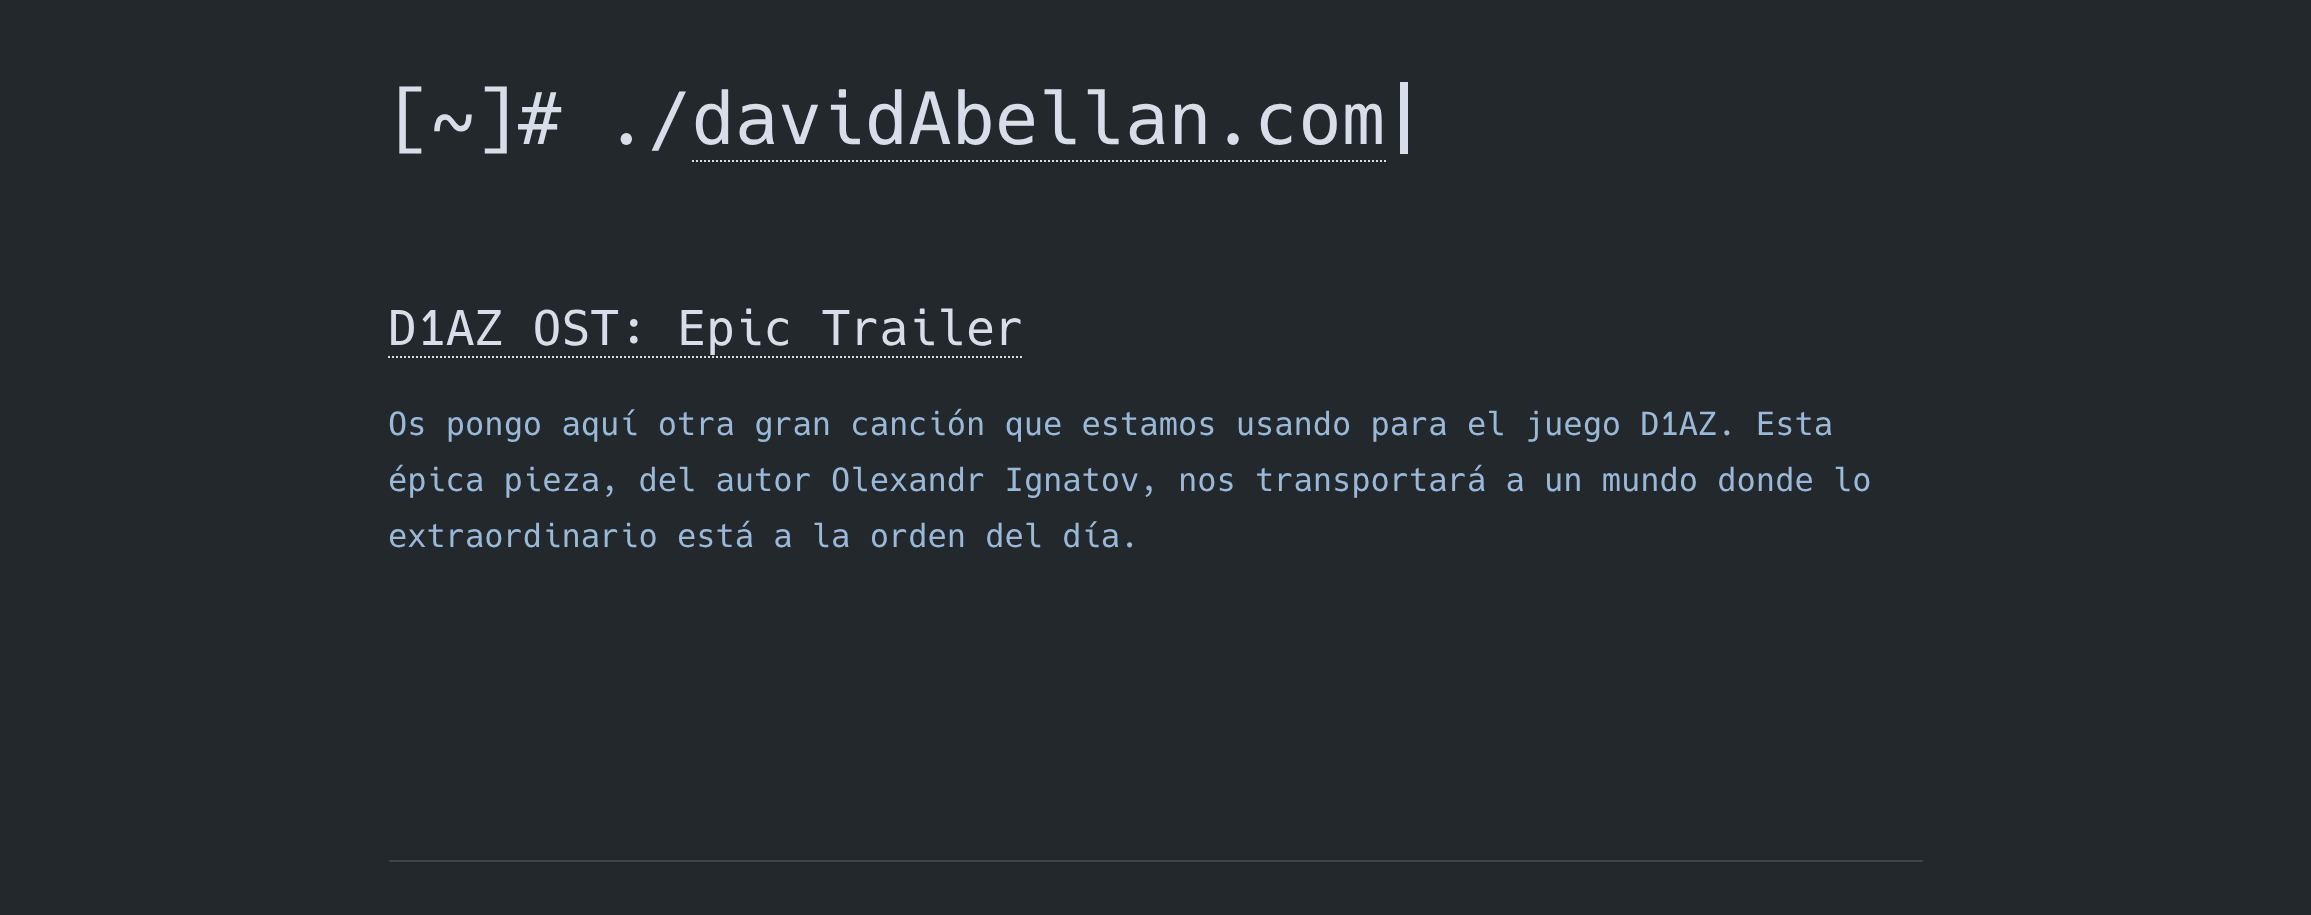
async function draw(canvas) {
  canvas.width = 2311;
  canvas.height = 915;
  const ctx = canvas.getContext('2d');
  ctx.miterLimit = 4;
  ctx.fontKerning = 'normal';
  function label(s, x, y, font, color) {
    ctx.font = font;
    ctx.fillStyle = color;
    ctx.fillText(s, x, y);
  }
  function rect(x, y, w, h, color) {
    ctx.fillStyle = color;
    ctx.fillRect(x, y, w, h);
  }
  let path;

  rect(0, 0, 2311, 915, '#23282d');
  label('[~]# ./davidAbellan.com', 388, 144, '72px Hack', '#d8dee9');
  rect(1400, 82, 8, 72, '#d8dee9');
  path = new Path2D('M692 161H1386');
  ctx.strokeStyle = '#d8dee9';
  ctx.lineWidth = 2;
  ctx.setLineDash([2, 2]);
  ctx.stroke(path);
  label('D1AZ OST: Epic Trailer', 388, 345, '48px Hack', '#d8dee9');
  path = new Path2D('M388 357H1024');
  ctx.stroke(path);
  label('Os pongo aquí otra gran canción que estamos usando para el juego D1AZ. Esta', 388, 435, '32px Hack', '#9ab9d8');
  label('épica pieza, del autor Olexandr Ignatov, nos transportará a un mundo donde lo', 388, 491, '32px Hack', '#9ab9d8');
  label('extraordinario está a la orden del día.', 388, 547, '32px Hack', '#9ab9d8');
  ctx.fillStyle = '#3c454e';
  path = new Path2D('M388 860H1924L1922 862H390Z');
  ctx.fill(path);
}

draw(document.querySelector('canvas'));
